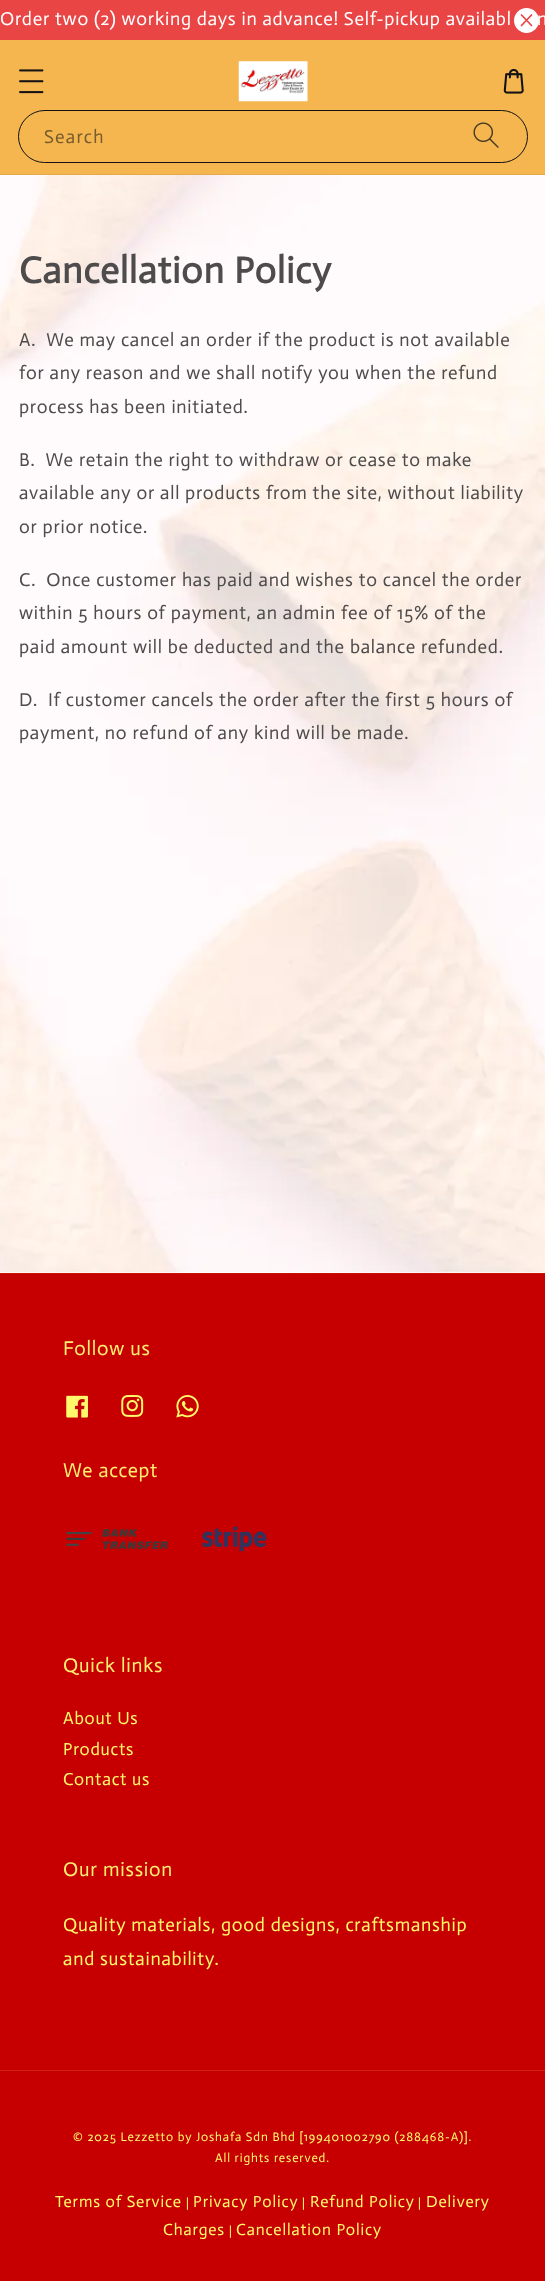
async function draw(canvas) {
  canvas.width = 545;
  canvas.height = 2281;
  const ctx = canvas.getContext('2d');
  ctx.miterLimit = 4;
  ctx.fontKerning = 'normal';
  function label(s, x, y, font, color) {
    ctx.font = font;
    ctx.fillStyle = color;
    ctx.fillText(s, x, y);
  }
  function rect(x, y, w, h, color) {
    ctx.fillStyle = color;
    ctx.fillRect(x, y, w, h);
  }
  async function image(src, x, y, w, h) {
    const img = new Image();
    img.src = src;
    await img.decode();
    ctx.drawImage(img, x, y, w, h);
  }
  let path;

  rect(0, 0, 545, 2281, '#fff');
  await image('assets/img1.png', 0, 175, 545, 1098);
  rect(0, 0, 545, 40, '#e94545');
  ctx.fillStyle = '#fff';
  ctx.beginPath();
  ctx.arc(526.5, 20.5, 12.5, 0, 2 * Math.PI);
  ctx.fill();
  path = new Path2D('M531.5 15L521.5 25.5M521.5 15L531.5 25.5');
  ctx.strokeStyle = '#e94545';
  ctx.lineWidth = 1.7;
  ctx.lineCap = 'round';
  ctx.lineJoin = 'round';
  ctx.stroke(path);
  ctx.letterSpacing = '0.75px';
  label('Order two (2) working days in advance! Self-pickup availabl', 0, 25, '18.75px Actor', '#fff');
  label('n', 537, 25, '18.75px Actor', '#fff');
  rect(0, 40, 545, 134, '#f5b650');
  rect(0, 174, 545, 1, '#e3a94b');
  await image('assets/img2.png', 19, 69, 25, 25);
  await image('assets/img3.png', 238, 61, 70, 41);
  await image('assets/img4.png', 503, 69, 21, 25);
  ctx.beginPath();
  ctx.roundRect(18.5, 110.5, 509, 52, 26);
  ctx.strokeStyle = '#121212';
  ctx.lineWidth = 1;
  ctx.lineJoin = 'miter';
  ctx.stroke();
  ctx.letterSpacing = '1.25px';
  label('Search', 44, 143, '18.75px Actor', '#785c2e');
  await image('assets/img5.png', 473, 122, 26, 26);
  ctx.letterSpacing = '0.75px';
  label('Cancellation Policy', 19, 283, 'bold 37.5px Actor', '#4d4b4b');
  label('A.  We may cancel an order if the product is not available', 19, 346, '18.75px Actor', '#4d4b4b');
  label('for any reason and we shall notify you when the refund', 19, 379, '18.75px Actor', '#4d4b4b');
  label('process has been initiated.', 19, 413, '18.75px Actor', '#4d4b4b');
  label('B.  We retain the right to withdraw or cease to make', 19, 466, '18.75px Actor', '#4d4b4b');
  label('available any or all products from the site, without liability', 19, 499, '18.75px Actor', '#4d4b4b');
  label('or prior notice.', 19, 533, '18.75px Actor', '#4d4b4b');
  label('C.  Once customer has paid and wishes to cancel the order', 19, 586, '18.75px Actor', '#4d4b4b');
  label('within 5 hours of payment, an admin fee of 15% of the', 19, 619, '18.75px Actor', '#4d4b4b');
  label('paid amount will be deducted and the balance refunded.', 19, 653, '18.75px Actor', '#4d4b4b');
  label('D.  If customer cancels the order after the first 5 hours of', 19, 706, '18.75px Actor', '#4d4b4b');
  label('payment, no refund of any kind will be made.', 19, 739, '18.75px Actor', '#4d4b4b');
  rect(0, 1274, 545, 1007, '#c60000');
  rect(0, 1273, 545, 1, '#cb1409');
  label('Follow us', 63, 1355, '20px Actor', '#ffee71');
  await image('assets/img6.png', 66, 1395, 22, 23);
  await image('assets/img7.png', 121, 1395, 23, 22);
  await image('assets/img8.png', 176, 1395, 23, 23);
  label('We accept', 63, 1477, '20px Actor', '#ffee71');
  await image('assets/img9.png', 66, 1529, 102, 21);
  await image('assets/img10.png', 202, 1526, 65, 26);
  label('Quick links', 63, 1672, '20px Actor', '#ffee71');
  label('About Us', 63, 1724, '17.5px Actor', '#fff86b');
  label('Products', 63, 1755, '17.5px Actor', '#fff86b');
  label('Contact us', 63, 1785, '17.5px Actor', '#fff86b');
  label('Our mission', 63, 1876, '20px Actor', '#ffee71');
  label('Quality materials, good designs, craftsmanship', 63, 1931, '18.75px Actor', '#fff86b');
  label('and sustainability.', 63, 1965, '18.75px Actor', '#fff86b');
  rect(0, 2070, 545, 1, '#cf2510');
  ctx.letterSpacing = '0.88px';
  label('© 2025 Lezzetto by Joshafa Sdn Bhd [199401002790 (288468-A)].', 73, 2141, '12.5px Actor', '#fff86b');
  label('All rights reserved.', 215, 2162, '12.5px Actor', '#fff86b');
  label('Terms of Service', 55, 2207, '16.25px Actor', '#fff86b');
  label('|', 186, 2207, '12.5px Actor', '#fff86b');
  label('Privacy Policy', 193, 2207, '16.25px Actor', '#fff86b');
  label('|', 302, 2207, '12.5px Actor', '#fff86b');
  label('Refund Policy', 310, 2207, '16.25px Actor', '#fff86b');
  label('|', 418, 2207, '12.5px Actor', '#fff86b');
  label('Delivery', 426, 2207, '16.25px Actor', '#fff86b');
  label('Charges', 163, 2235, '16.25px Actor', '#fff86b');
  label('|', 229, 2235, '12.5px Actor', '#fff86b');
  label('Cancellation Policy', 236, 2235, '16.25px Actor', '#fff86b');
}

draw(document.querySelector('canvas'));
